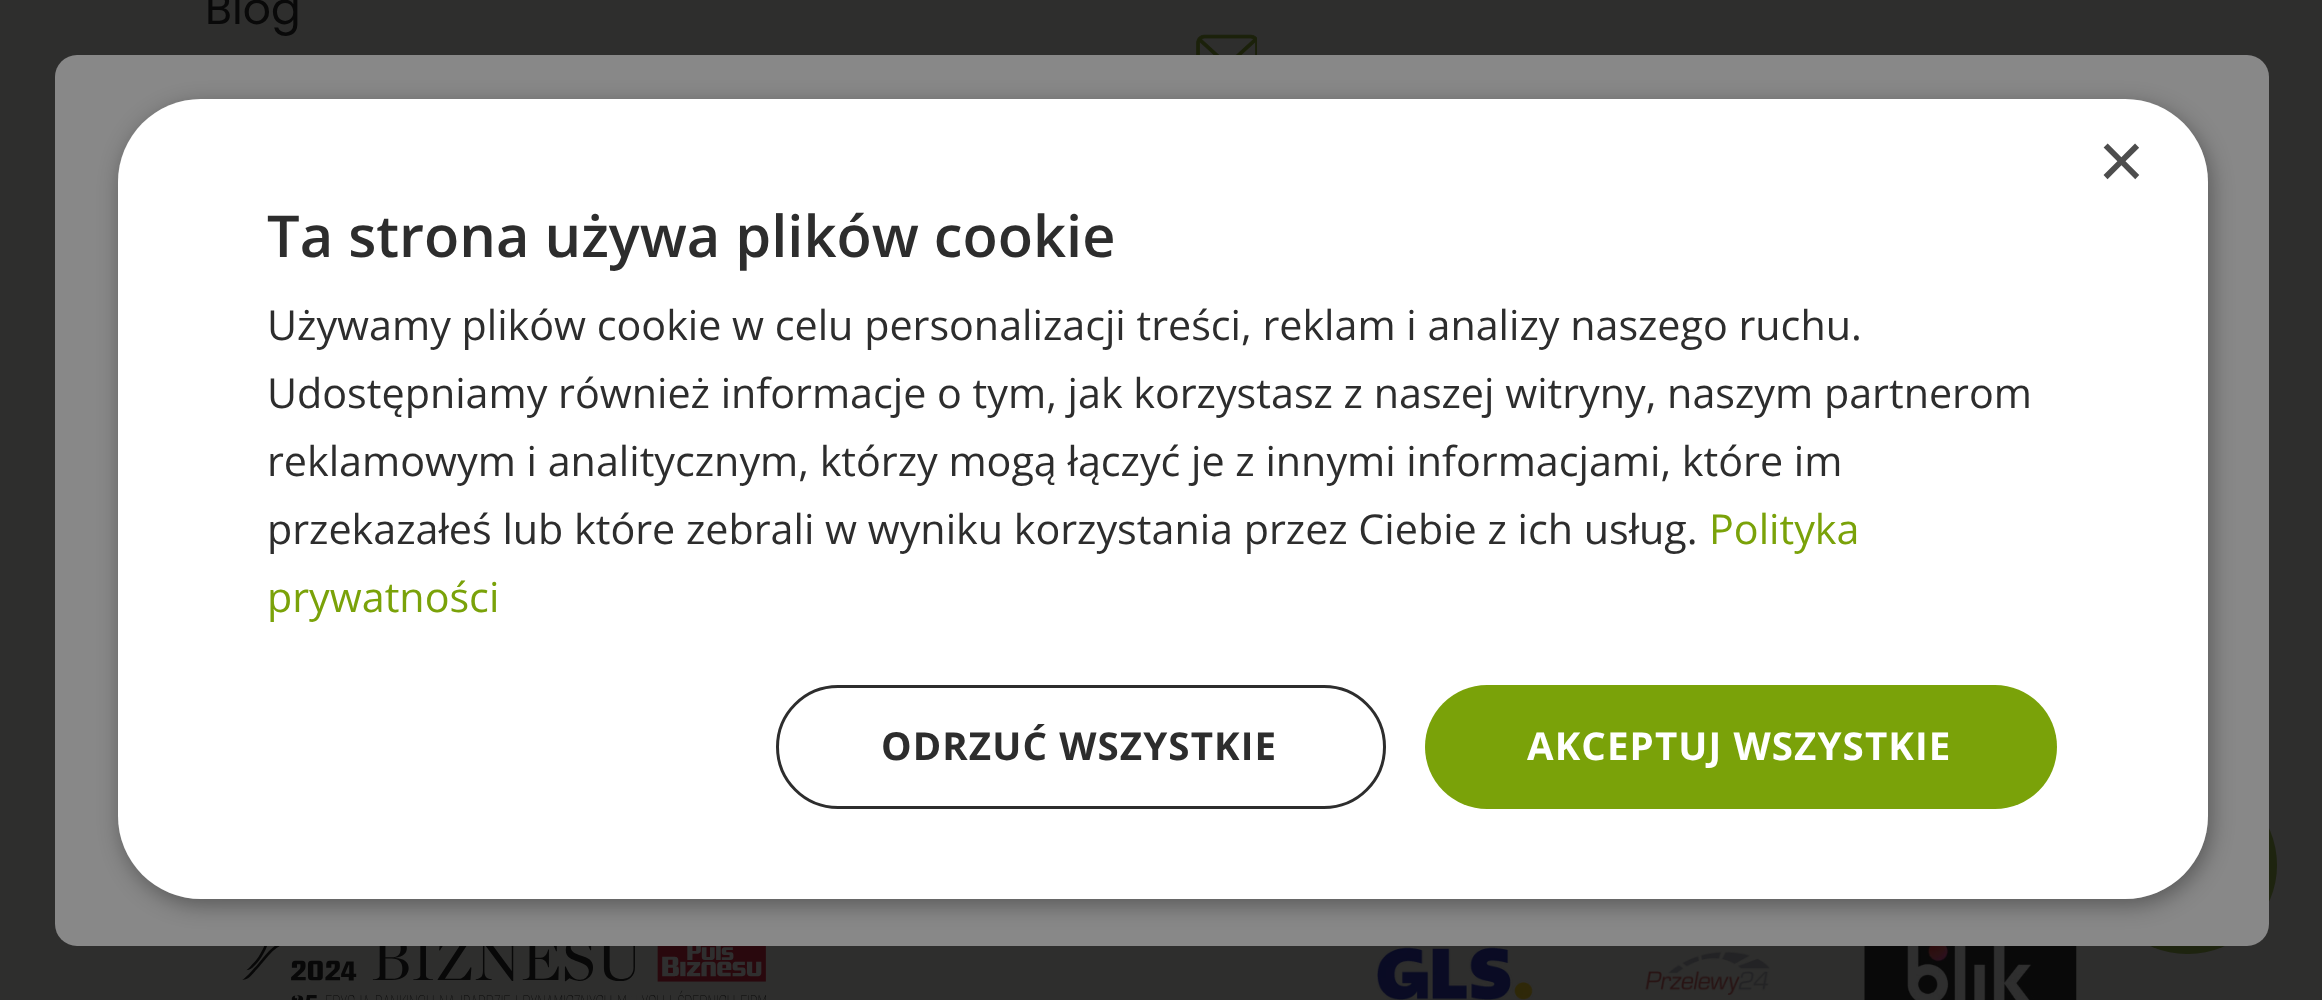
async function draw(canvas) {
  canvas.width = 2322;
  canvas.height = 1000;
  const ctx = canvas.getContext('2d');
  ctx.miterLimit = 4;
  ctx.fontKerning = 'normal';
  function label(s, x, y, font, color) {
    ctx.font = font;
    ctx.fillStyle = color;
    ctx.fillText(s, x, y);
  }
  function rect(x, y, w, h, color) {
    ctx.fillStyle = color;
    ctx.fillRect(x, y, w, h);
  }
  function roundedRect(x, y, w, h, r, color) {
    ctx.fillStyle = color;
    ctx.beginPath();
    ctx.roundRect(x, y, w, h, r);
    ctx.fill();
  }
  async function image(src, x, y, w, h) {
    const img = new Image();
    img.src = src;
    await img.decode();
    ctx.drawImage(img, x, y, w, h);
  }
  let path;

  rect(0, 0, 2322, 1000, '#2e2e2d');
  label('Blog', 205, 24, '44px Poppins', '#090909');
  await image('assets/img1.png', 1196, 34, 61, 21);
  await image('assets/img2.png', 242, 946, 524, 54);
  await image('assets/img3.png', 1377, 947, 156, 53);
  await image('assets/img4.png', 1645, 951, 125, 44);
  await image('assets/img5.png', 1864, 946, 213, 54);
  roundedRect(2098, 776, 179, 178, 89, '#1e240f');
  roundedRect(55, 55, 2214, 891, 22, '#888');
  ctx.save();
  path = new Path2D('M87 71H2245V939H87ZM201 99H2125C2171 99 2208 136 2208 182V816C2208 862 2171 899 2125 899H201C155 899 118 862 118 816V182C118 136 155 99 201 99Z');
  ctx.clip(path, 'evenodd');
  ctx.fillStyle = '#00000059';
  ctx.filter = 'blur(11px)';
  ctx.beginPath();
  ctx.roundRect(121, 105, 2090, 800, 83);
  ctx.fill();
  ctx.filter = 'none';
  ctx.restore();
  roundedRect(118, 99, 2090, 800, 83, '#fff');
  label('×', 2098, 188, '80px Liberation Sans', '#4d4d4d');
  label('Ta strona używa plików cookie', 267, 257, '600 57.75px Open Sans', '#2d2d2d');
  label('Używamy plików cookie w celu personalizacji treści, reklam i analizy naszego ruchu.', 267, 340, '41.25px Open Sans', '#2d2d2d');
  label('Udostępniamy również informacje o tym, jak korzystasz z naszej witryny, naszym partnerom', 267, 408, '41.25px Open Sans', '#2d2d2d');
  label('reklamowym i analitycznym, którzy mogą łączyć je z innymi informacjami, które im', 267, 476, '41.25px Open Sans', '#2d2d2d');
  label('przekazałeś lub które zebrali w wyniku korzystania przez Ciebie z ich usług.', 267, 544, '41.25px Open Sans', '#2d2d2d');
  label('Polityka', 1709, 544, '41.25px Open Sans', '#7aa209');
  label('prywatności', 267, 612, '41.25px Open Sans', '#7aa209');
  ctx.beginPath();
  ctx.roundRect(777.5, 686.5, 607, 121, 60.5);
  ctx.strokeStyle = '#2d2d2d';
  ctx.lineWidth = 3;
  ctx.stroke();
  ctx.letterSpacing = '1.1px';
  label('ODRZUĆ WSZYSTKIE', 881, 760, 'bold 38.5px Open Sans', '#2d2d2d');
  roundedRect(1425, 685, 632, 124, 62, '#7aa209');
  label('AKCEPTUJ WSZYSTKIE', 1527, 760, 'bold 38.5px Open Sans', '#fff');
}

draw(document.querySelector('canvas'));
